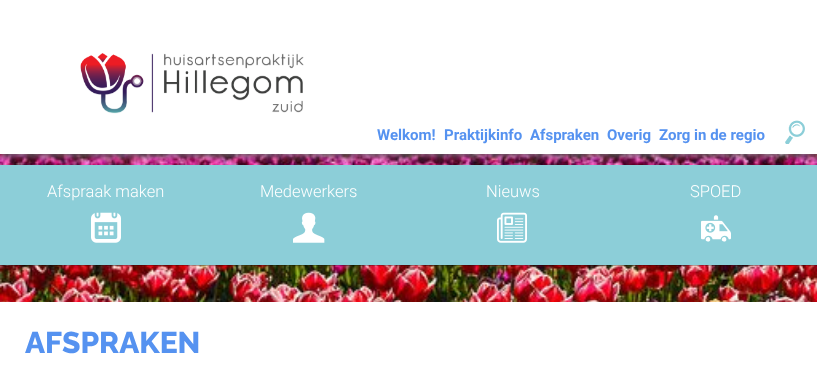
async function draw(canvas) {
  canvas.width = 817;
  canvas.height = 387;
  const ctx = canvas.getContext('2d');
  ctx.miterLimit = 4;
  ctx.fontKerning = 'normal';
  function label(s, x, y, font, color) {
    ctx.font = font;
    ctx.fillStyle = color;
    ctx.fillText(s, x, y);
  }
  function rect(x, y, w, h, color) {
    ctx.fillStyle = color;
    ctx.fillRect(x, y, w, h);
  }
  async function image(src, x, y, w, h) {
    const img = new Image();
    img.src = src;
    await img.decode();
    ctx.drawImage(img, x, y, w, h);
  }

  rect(0, 0, 817, 387, '#fff');
  await image('assets/img3.png', 0, 154, 817, 148);
  ctx.fillStyle = '#00000040';
  ctx.filter = 'blur(0.5px)';
  ctx.beginPath();
  ctx.rect(0, 166, 817, 100);
  ctx.fill();
  ctx.filter = 'none';
  rect(0, 165, 817, 100, '#8cced8');
  ctx.fillStyle = '#646464';
  ctx.filter = 'blur(3.5px)';
  ctx.beginPath();
  ctx.rect(0, 2, 817, 154);
  ctx.fill();
  ctx.filter = 'none';
  rect(0, 0, 817, 154, '#fff');
  await image('assets/img1.png', 80, 53, 224, 61);
  label('Welkom!', 377, 140, 'bold 15px Roboto', '#5592f0');
  label('Praktijkinfo', 444, 140, 'bold 15px Roboto', '#5592f0');
  label('Afspraken', 530, 140, 'bold 15px Roboto', '#5592f0');
  label('Overig', 607, 140, 'bold 15px Roboto', '#5592f0');
  label('Zorg in de regio', 659, 140, 'bold 15px Roboto', '#5592f0');
  rect(785, 120, 20, 24, '#8cced8');
  await image('assets/img2.png', 785, 120, 20, 24);
  label('Afspraak maken', 47, 197, '300 16.5px Roboto', '#fff');
  await image('assets/img4.png', 91, 212, 30, 31);
  label('Medewerkers', 260, 197, '300 16.5px Roboto', '#fff');
  await image('assets/img5.png', 293, 212, 32, 31);
  label('Nieuws', 486, 197, '300 16.5px Roboto', '#fff');
  await image('assets/img6.png', 497, 212, 30, 31);
  label('SPOED', 690, 197, '300 16.5px Roboto', '#fff');
  await image('assets/img7.png', 701, 215, 30, 27);
  label('AFSPRAKEN', 25, 353, '800 30px Raleway', '#5592f0');
}

draw(document.querySelector('canvas'));
